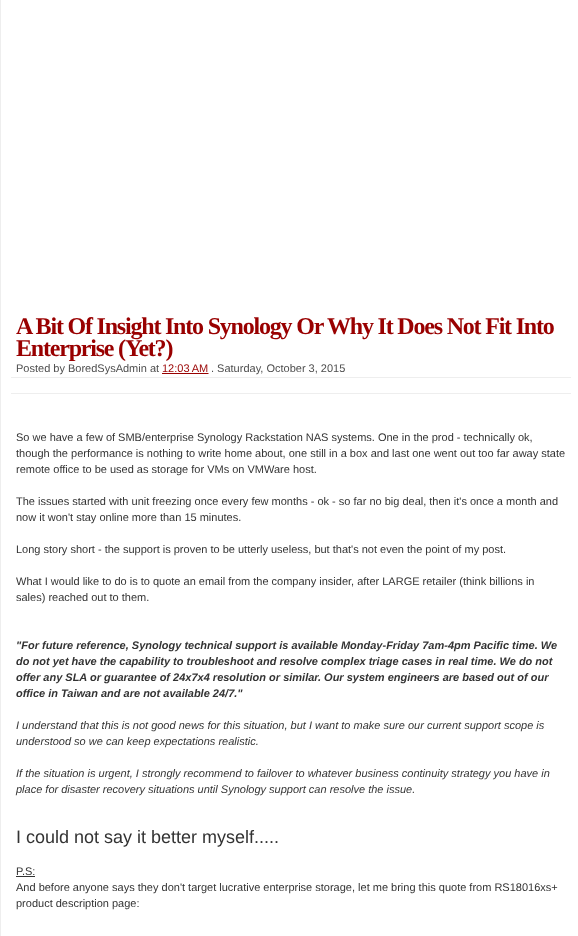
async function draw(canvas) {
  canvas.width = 578;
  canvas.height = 936;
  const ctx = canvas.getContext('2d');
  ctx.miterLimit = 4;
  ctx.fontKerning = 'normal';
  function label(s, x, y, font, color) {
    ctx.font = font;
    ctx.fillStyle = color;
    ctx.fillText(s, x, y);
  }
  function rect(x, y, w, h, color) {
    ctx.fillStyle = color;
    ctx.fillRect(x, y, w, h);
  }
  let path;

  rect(0, 0, 578, 936, '#fff');
  rect(0, 0, 1, 936, '#eee');
  ctx.letterSpacing = '-1.2px';
  label('A Bit Of Insight Into Synology Or Why It Does Not Fit Into', 16, 334, 'bold 24px Liberation Serif', '#900');
  label('Enterprise (Yet?)', 16, 356, 'bold 24px Liberation Serif', '#900');
  ctx.letterSpacing = '0px';
  label('Posted by BoredSysAdmin at', 16, 372, '11px Liberation Sans', '#4e4e4e');
  label('12:03 AM', 162, 372, '11px Liberation Sans', '#900');
  path = new Path2D('M162 373.5H208.5');
  ctx.strokeStyle = '#900';
  ctx.setLineDash([1, 1]);
  ctx.stroke(path);
  rect(162, 373, 46, 1, '#900');
  label('. Saturday, October 3, 2015', 211, 372, '11px Liberation Sans', '#4e4e4e');
  rect(11, 377, 560, 1, '#eee');
  rect(11, 393, 560, 1, '#eee');
  label('So we have a few of SMB/enterprise Synology Rackstation NAS systems. One in the prod - technically ok,', 16, 441, '11px Liberation Sans', '#333');
  label('though the performance is nothing to write home about, one still in a box and last one went out too far away state', 16, 457, '11px Liberation Sans', '#333');
  label('remote office to be used as storage for VMs on VMWare host.', 16, 473, '11px Liberation Sans', '#333');
  label('The issues started with unit freezing once every few months - ok - so far no big deal, then it\'s once a month and', 16, 505, '11px Liberation Sans', '#333');
  label('now it won\'t stay online more than 15 minutes.', 16, 521, '11px Liberation Sans', '#333');
  label('Long story short - the support is proven to be utterly useless, but that\'s not even the point of my post.', 16, 553, '11px Liberation Sans', '#333');
  label('What I would like to do is to quote an email from the company insider, after LARGE retailer (think billions in', 16, 585, '11px Liberation Sans', '#333');
  label('sales) reached out to them.', 16, 601, '11px Liberation Sans', '#333');
  label('"For future reference, Synology technical support is available Monday-Friday 7am-4pm Pacific time. We', 16, 649, 'italic bold 11px Liberation Sans', '#333');
  label('do not yet have the capability to troubleshoot and resolve complex triage cases in real time. We do not', 16, 665, 'italic bold 11px Liberation Sans', '#333');
  label('offer any SLA or guarantee of 24x7x4 resolution or similar. Our system engineers are based out of our', 16, 681, 'italic bold 11px Liberation Sans', '#333');
  label('office in Taiwan and are not available 24/7."', 16, 697, 'italic bold 11px Liberation Sans', '#333');
  label('I understand that this is not good news for this situation, but I want to make sure our current support scope is', 16, 729, 'italic 11px Liberation Sans', '#333');
  label('understood so we can keep expectations realistic.', 16, 745, 'italic 11px Liberation Sans', '#333');
  label('If the situation is urgent, I strongly recommend to failover to whatever business continuity strategy you have in', 16, 777, 'italic 11px Liberation Sans', '#333');
  label('place for disaster recovery situations until Synology support can resolve the issue.', 16, 793, 'italic 11px Liberation Sans', '#333');
  label('I could not say it better myself.....', 16, 843, '18px Liberation Sans', '#333');
  label('P.S:', 16, 875, '11px Liberation Sans', '#333');
  rect(16, 876, 19, 1, '#333');
  label('And before anyone says they don\'t target lucrative enterprise storage, let me bring this quote from RS18016xs+', 16, 891, '11px Liberation Sans', '#333');
  label('product description page:', 16, 907, '11px Liberation Sans', '#333');
}

draw(document.querySelector('canvas'));
